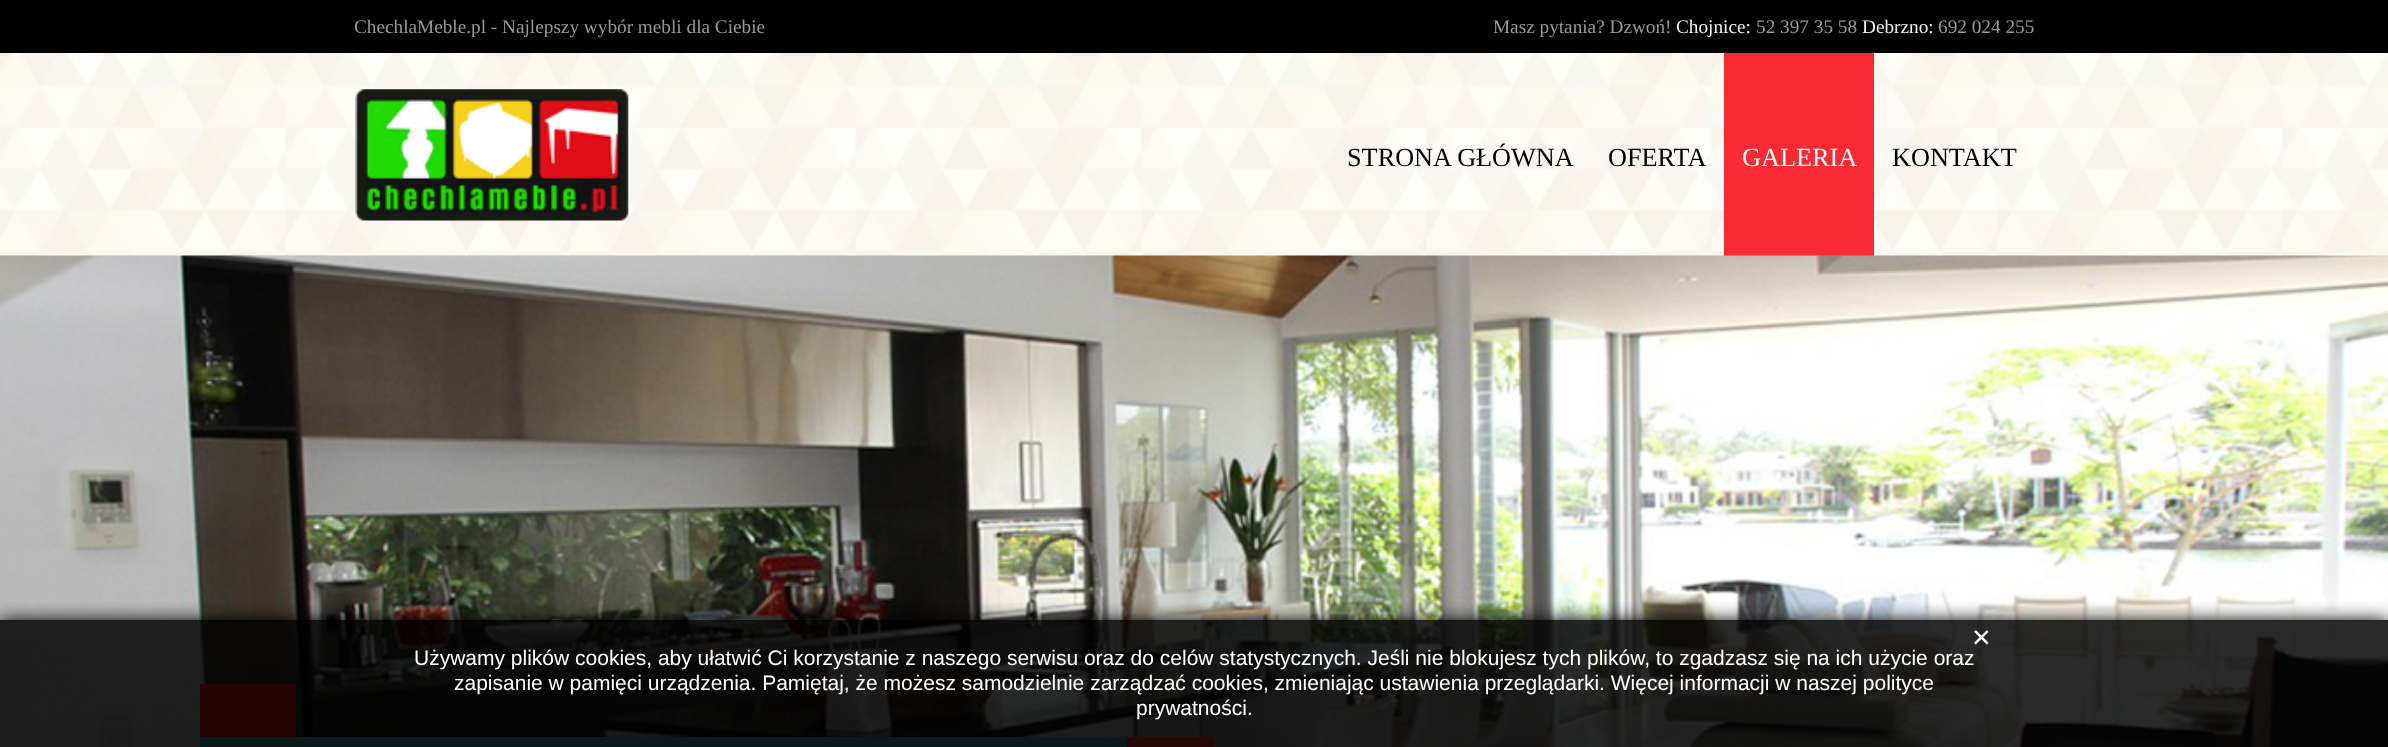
async function draw(canvas) {
  canvas.width = 2388;
  canvas.height = 747;
  const ctx = canvas.getContext('2d');
  ctx.miterLimit = 4;
  ctx.fontKerning = 'normal';
  function label(s, x, y, font, color) {
    ctx.font = font;
    ctx.fillStyle = color;
    ctx.fillText(s, x, y);
  }
  function rect(x, y, w, h, color) {
    ctx.fillStyle = color;
    ctx.fillRect(x, y, w, h);
  }
  async function image(src, x, y, w, h) {
    const img = new Image();
    img.src = src;
    await img.decode();
    ctx.drawImage(img, x, y, w, h);
  }

  rect(0, 0, 2388, 747, '#fff');
  await image('assets/img1.png', 0, 53, 2388, 203);
  rect(0, 0, 2388, 53, '#000');
  label('ChechlaMeble.pl - Najlepszy wybór mebli dla Ciebie', 354, 33, '19.25px Liberation Serif', '#989898');
  label('Masz pytania? Dzwoń!', 1493, 33, '19.25px Liberation Serif', '#989898');
  label('Chojnice:', 1676, 33, '19.25px Liberation Serif', '#f0f0f0');
  label('52 397 35 58', 1756, 33, '19.25px Liberation Serif', '#989898');
  label('Debrzno:', 1862, 33, '19.25px Liberation Serif', '#f0f0f0');
  label('692 024 255', 1938, 33, '19.25px Liberation Serif', '#989898');
  await image('assets/img2.png', 355, 89, 274, 132);
  label('STRONA GŁÓWNA', 1347, 166, '26.25px Liberation Serif', '#000');
  label('OFERTA', 1608, 166, '26.25px Liberation Serif', '#000');
  rect(1724, 53, 150, 203, '#f92a34');
  label('GALERIA', 1742, 166, '26.25px Liberation Serif', '#fff');
  label('KONTAKT', 1892, 166, '26.25px Liberation Serif', '#000');
  await image('assets/img3.png', 0, 255, 2388, 492);
  rect(200, 684, 96, 53, '#ed1d27');
  await image('assets/img4.png', 1123, 736, 92, 11);
  rect(200, 737, 927, 10, '#49a4a0');
  ctx.save();
  ctx.beginPath();
  ctx.rect(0, 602, 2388, 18);
  ctx.clip();
  ctx.fillStyle = '#000';
  ctx.filter = 'blur(9px)';
  ctx.beginPath();
  ctx.rect(0, 620, 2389, 127);
  ctx.fill();
  ctx.filter = 'none';
  ctx.restore();
  rect(0, 620, 2388, 127, '#000000d6');
  label('×', 1972, 648, '32px Liberation Sans', '#fff');
  label('Używamy plików cookies, aby ułatwić Ci korzystanie z naszego serwisu oraz do celów statystycznych. Jeśli nie blokujesz tych plików, to zgadzasz się na ich użycie oraz', 414, 665, '21px Liberation Sans', '#fff');
  label('zapisanie w pamięci urządzenia. Pamiętaj, że możesz samodzielnie zarządzać cookies, zmieniając ustawienia przeglądarki. Więcej informacji w naszej polityce', 454, 690, '21px Liberation Sans', '#fff');
  label('prywatności.', 1136, 715, '21px Liberation Sans', '#fff');
}

draw(document.querySelector('canvas'));
